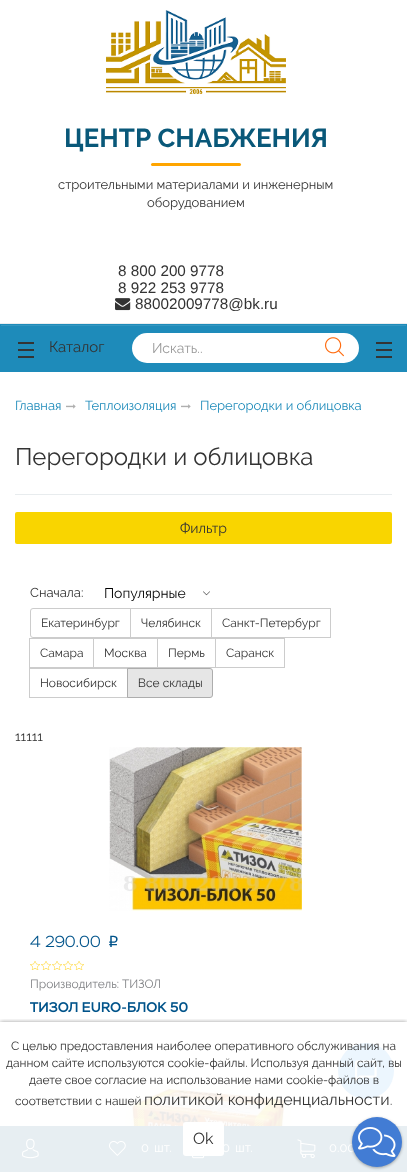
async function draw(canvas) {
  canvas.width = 407;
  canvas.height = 1172;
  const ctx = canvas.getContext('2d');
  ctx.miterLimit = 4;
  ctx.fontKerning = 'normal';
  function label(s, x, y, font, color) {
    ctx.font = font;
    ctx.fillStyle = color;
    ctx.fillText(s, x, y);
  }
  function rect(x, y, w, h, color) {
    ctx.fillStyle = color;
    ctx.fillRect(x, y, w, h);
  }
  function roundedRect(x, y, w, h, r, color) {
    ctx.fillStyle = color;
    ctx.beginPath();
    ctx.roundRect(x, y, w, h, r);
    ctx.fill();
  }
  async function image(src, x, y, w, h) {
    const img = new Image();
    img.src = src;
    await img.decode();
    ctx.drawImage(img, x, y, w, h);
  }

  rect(0, 0, 407, 1172, '#fff');
  rect(0, 323, 407, 1, '#eaedef');
  await image('assets/img1.png', 106, 10, 180, 84);
  label('ЦЕНТР СНАБЖЕНИЯ', 64, 147, 'bold 26px Raleway', '#095879');
  roundedRect(151, 163, 90, 3, 1.5, '#ffa500');
  label('строительными материалами и инженерным', 58, 189, '13px Raleway', '#333');
  label('оборудованием', 147, 207, '13px Raleway', '#333');
  label('8 800 200 9778', 118, 276, '15.25px Liberation Sans', '#333');
  label('8 922 253 9778', 118, 293, '15.25px Liberation Sans', '#333');
  await image('assets/img2.png', 115, 298, 16, 13);
  label('88002009778@bk.ru', 135, 309, '15.25px Liberation Sans', '#333');
  rect(0, 1126, 407, 46, '#e7eef2');
  await image('assets/img3.png', 22, 1138, 17, 21);
  await image('assets/img4.png', 109, 1141, 17, 15);
  label('0', 141, 1152, '13px Raleway', '#fff');
  label('шт.', 154, 1152, '13px Raleway', '#fff');
  label('0', 222, 1152, '13px Raleway', '#fff');
  label('шт.', 235, 1152, '13px Raleway', '#fff');
  await image('assets/img5.png', 192, 1156, 13, 3);
  await image('assets/img6.png', 297, 1139, 19, 20);
  label('0.00', 329, 1152, '13px Raleway', '#fff');
  rect(0, 324, 407, 48, '#1e8bba');
  rect(1, 325, 405, 1, '#3597c1');
  rect(18, 342, 16, 2, '#343434');
  rect(18, 349, 16, 2, '#343434');
  rect(18, 356, 16, 2, '#343434');
  label('Каталог', 49, 352, '15px Raleway', '#333');
  ctx.fillStyle = '#fff';
  ctx.beginPath();
  ctx.roundRect(310, 333, 49, 30, [0, 15, 15, 0]);
  ctx.fill();
  ctx.beginPath();
  ctx.roundRect(132, 333, 179, 30, [15, 0, 0, 15]);
  ctx.fill();
  label('Искать..', 152, 353, '14px Raleway', '#999');
  await image('assets/img7.png', 325, 337, 19, 20);
  rect(376, 342, 16, 2, '#343434');
  rect(376, 349, 16, 2, '#343434');
  rect(376, 356, 16, 2, '#343434');
  label('Главная', 15, 410, '13px Raleway', '#1e8bba');
  await image('assets/img8.png', 66, 404, 10, 5);
  label('Теплоизоляция', 85, 410, '13px Raleway', '#1e8bba');
  await image('assets/img8.png', 181, 404, 10, 5);
  label('Перегородки и облицовка', 200, 410, '13px Raleway', '#1e8bba');
  label('Перегородки и облицовка', 15, 465, '24px Raleway', '#333');
  rect(15, 494, 377, 1, '#e8ecee');
  roundedRect(15, 512, 377, 32, 2, '#f9d500');
  label('Фильтр', 180, 533, '14px Raleway', '#333');
  label('Сначала:', 30, 597, '13px Raleway', '#333');
  label('Популярные', 104, 598, '14px Raleway', '#000');
  await image('assets/img9.png', 203, 591, 7, 5);
  ctx.beginPath();
  ctx.roundRect(30.5, 608.5, 100, 29, [2.5, 0, 0, 2.5]);
  ctx.strokeStyle = '#ccc';
  ctx.stroke();
  label('Екатеринбург', 41, 627, '12px Raleway', '#333');
  ctx.strokeRect(130.5, 608.5, 81, 29);
  label('Челябинск', 141, 627, '12px Raleway', '#333');
  ctx.strokeRect(211.5, 608.5, 119, 29);
  label('Санкт-Петербург', 222, 627, '12px Raleway', '#333');
  ctx.strokeRect(29.5, 638.5, 64, 29);
  label('Самара', 40, 657, '12px Raleway', '#333');
  ctx.strokeRect(93.5, 638.5, 64, 29);
  label('Москва', 104, 657, '12px Raleway', '#333');
  ctx.strokeRect(157.5, 638.5, 58, 29);
  label('Пермь', 168, 657, '12px Raleway', '#333');
  ctx.strokeRect(215.5, 638.5, 69, 29);
  label('Саранск', 226, 657, '12px Raleway', '#333');
  ctx.strokeRect(29.5, 668.5, 98, 29);
  label('Новосибирск', 40, 687, '12px Raleway', '#333');
  ctx.fillStyle = '#e6e6e6';
  ctx.beginPath();
  ctx.roundRect(127.5, 668.5, 85, 29, [0, 2.5, 2.5, 0]);
  ctx.fill();
  ctx.strokeStyle = '#adadad';
  ctx.stroke();
  label('Все склады', 138, 687, '12px Raleway', '#333');
  label('11111', 15, 741, '13px Raleway', '#333');
  await image('assets/img10.png', 109, 747, 193, 164);
  await image('assets/img11.png', 30, 935, 70, 13);
  label('p', 106, 947, '16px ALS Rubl', '#00538a');
  await image('assets/img12.png', 30, 961, 54, 9);
  label('Производитель: ТИЗОЛ', 30, 988, '12px Raleway', '#808285');
  await image('assets/img13.png', 30, 1002, 158, 11);
  await image('assets/img14.png', 125, 1078, 170, 48);
  ctx.fillStyle = '#ecf6fe';
  ctx.beginPath();
  ctx.arc(366, 1071, 28, 0, 2 * Math.PI);
  ctx.fill();
  await image('assets/img15.png', 355, 1060, 22, 22);
  ctx.save();
  ctx.beginPath();
  ctx.rect(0, 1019, 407, 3);
  ctx.clip();
  ctx.fillStyle = '#00000066';
  ctx.filter = 'blur(2px)';
  ctx.beginPath();
  ctx.rect(0, 1022, 407, 150);
  ctx.fill();
  ctx.filter = 'none';
  ctx.restore();
  label('С целью предоставления наиболее оперативного обслуживания на', 11, 1050, '12px Raleway', '#333');
  label('данном сайте используются cookie-файлы. Используя данный сайт, вы', 6, 1067, '12px Raleway', '#333');
  label('даете свое согласие на использование нами cookie-файлов в', 29, 1084, '12px Raleway', '#333');
  label('соответствии с нашей', 15, 1105, '12px Raleway', '#333');
  label('политикой конфиденциальности', 144, 1105, '16px Raleway', '#333');
  label('.', 390, 1105, '12px Raleway', '#333');
  roundedRect(183, 1122, 41, 34, 3, '#fff');
  label('Ok', 193, 1144, '16px Raleway', '#333');
  ctx.fillStyle = '#00000054';
  ctx.filter = 'blur(1.5px)';
  ctx.beginPath();
  ctx.roundRect(352, 1118, 50, 50, 25);
  ctx.fill();
  ctx.filter = 'none';
  ctx.fillStyle = '#427cd4';
  ctx.beginPath();
  ctx.arc(377, 1142, 25, 0, 2 * Math.PI);
  ctx.fill();
  await image('assets/img16.png', 358, 1127, 38, 30);
}

draw(document.querySelector('canvas'));
